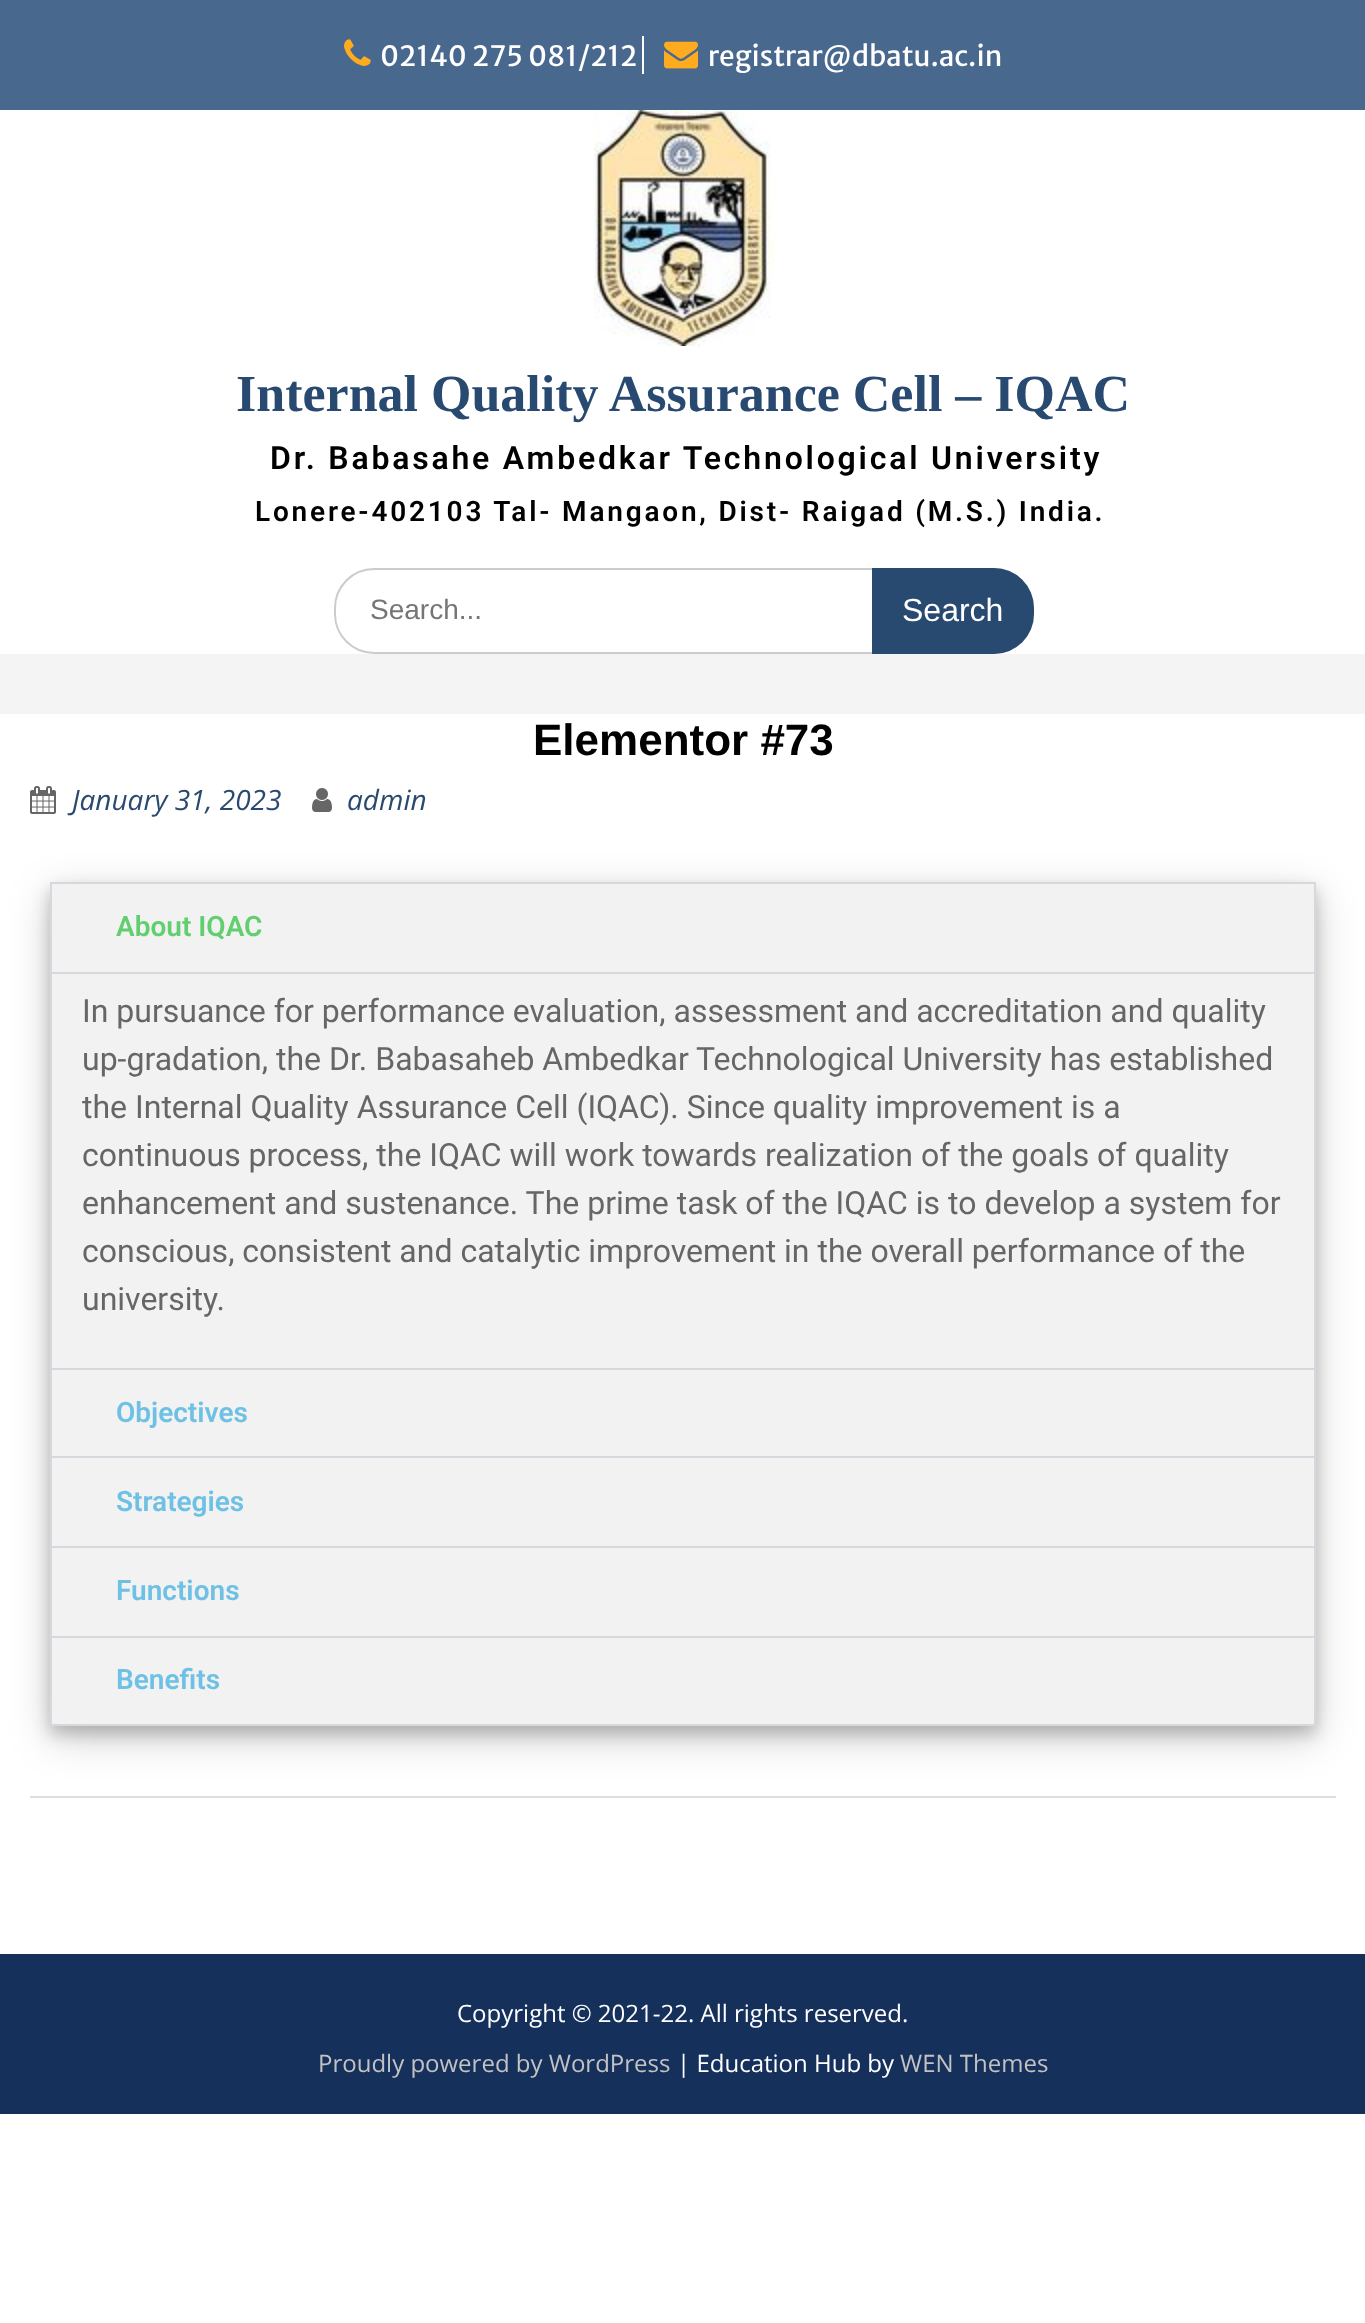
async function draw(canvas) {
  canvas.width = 1365;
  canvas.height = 2323;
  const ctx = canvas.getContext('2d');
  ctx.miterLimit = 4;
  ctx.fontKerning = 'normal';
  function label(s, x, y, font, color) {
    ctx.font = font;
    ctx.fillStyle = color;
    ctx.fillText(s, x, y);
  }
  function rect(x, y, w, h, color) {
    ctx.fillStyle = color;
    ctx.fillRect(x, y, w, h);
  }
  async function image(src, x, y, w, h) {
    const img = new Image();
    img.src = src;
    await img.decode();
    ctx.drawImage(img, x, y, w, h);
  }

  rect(0, 0, 1365, 2323, '#fff');
  rect(0, 0, 1365, 110, '#49688e');
  await image('assets/img1.png', 344, 39, 27, 27);
  label('02140 275 081/212', 380, 66, '28px Merriweather Sans', '#fff');
  rect(642, 36, 2, 38, '#fff');
  await image('assets/img2.png', 664, 41, 34, 28);
  label('registrar@dbatu.ac.in', 708, 66, '28px Merriweather Sans', '#fff');
  await image('assets/img3.png', 594, 110, 180, 236);
  label('Internal Quality Assurance Cell – IQAC', 236, 411, 'bold 52px Liberation Serif', '#294a70');
  ctx.letterSpacing = '2.8px';
  label('Dr. Babasahe Ambedkar Technological University', 270, 469, '600 32px Roboto', '#000');
  label('Lonere-402103 Tal- Mangaon, Dist- Raigad (M.S.) India.', 255, 521, '600 28px Roboto', '#000');
  ctx.beginPath();
  ctx.roundRect(335, 569, 698, 84, 39);
  ctx.strokeStyle = '#ccc';
  ctx.lineWidth = 2;
  ctx.stroke();
  ctx.letterSpacing = '0px';
  label('Search...', 370, 619, '28px Liberation Sans', '#757575');
  ctx.fillStyle = '#294a70';
  ctx.beginPath();
  ctx.roundRect(872, 568, 162, 86, [0, 40, 40, 0]);
  ctx.fill();
  label('Search', 902, 621, '32px Liberation Sans', '#fff');
  rect(0, 654, 1365, 60, '#f4f4f4');
  rect(30, 1796, 1306, 2, '#ddd');
  label('Elementor #73', 533, 755, 'bold 44px Liberation Sans', '#000');
  await image('assets/img4.png', 30, 786, 26, 28);
  label('January 31, 2023', 72, 810, 'italic 28px Open Sans', '#294a70');
  await image('assets/img5.png', 312, 788, 20, 24);
  label('admin', 347, 810, 'italic 28px Open Sans', '#294a70');
  ctx.fillStyle = '#00000030';
  ctx.filter = 'blur(20px)';
  ctx.beginPath();
  ctx.rect(50, 894, 1266, 844);
  ctx.fill();
  ctx.filter = 'none';
  ctx.fillStyle = '#00000033';
  ctx.filter = 'blur(8px)';
  ctx.beginPath();
  ctx.rect(50, 890, 1266, 844);
  ctx.fill();
  ctx.filter = 'none';
  ctx.fillStyle = '#f2f2f2';
  ctx.beginPath();
  ctx.rect(51, 883, 1264, 486);
  ctx.fill();
  ctx.strokeStyle = '#d5d8dc';
  ctx.stroke();
  label('About IQAC', 116, 936, '600 28px Roboto', '#61ce70');
  rect(52, 972, 1262, 2, '#d5d8dc');
  label('In pursuance for performance evaluation, assessment and accreditation and quality', 82, 1022, '32px Roboto', '#666');
  label('up-gradation, the Dr. Babasaheb Ambedkar Technological University has established', 82, 1070, '32px Roboto', '#666');
  label('the Internal Quality Assurance Cell (IQAC). Since quality improvement is a', 82, 1118, '32px Roboto', '#666');
  label('continuous process, the IQAC will work towards realization of the goals of quality', 82, 1166, '32px Roboto', '#666');
  label('enhancement and sustenance. The prime task of the IQAC is to develop a system for', 82, 1214, '32px Roboto', '#666');
  label('conscious, consistent and catalytic improvement in the overall performance of the', 82, 1262, '32px Roboto', '#666');
  label('university.', 82, 1310, '32px Roboto', '#666');
  rect(52, 1370, 1262, 86, '#f2f2f2');
  rect(1314, 1370, 2, 356, '#d5d8dc');
  rect(50, 1456, 1266, 2, '#d5d8dc');
  rect(50, 1370, 2, 88, '#d5d8dc');
  label('Objectives', 116, 1422, '600 28px Roboto', '#6ec1e4');
  rect(52, 1458, 1262, 88, '#f2f2f2');
  rect(50, 1546, 1266, 2, '#d5d8dc');
  rect(50, 1458, 2, 90, '#d5d8dc');
  label('Strategies', 116, 1511, '600 28px Roboto', '#6ec1e4');
  rect(52, 1548, 1262, 88, '#f2f2f2');
  rect(50, 1636, 1266, 2, '#d5d8dc');
  rect(50, 1548, 2, 90, '#d5d8dc');
  label('Functions', 116, 1600, '600 28px Roboto', '#6ec1e4');
  rect(52, 1638, 1262, 86, '#f2f2f2');
  rect(50, 1724, 1266, 2, '#d5d8dc');
  rect(50, 1638, 2, 88, '#d5d8dc');
  label('Benefits', 116, 1689, '600 28px Roboto', '#6ec1e4');
  rect(0, 1954, 1365, 160, '#15305b');
  label('Copyright © 2021-22. All rights reserved.', 457, 2022, '24px Open Sans', '#fff');
  label('Proudly powered by WordPress', 318, 2072, '24px Open Sans', '#c2c2c2');
  label('| Education Hub by', 677, 2072, '24px Open Sans', '#fff');
  label('WEN Themes', 900, 2072, '24px Open Sans', '#c2c2c2');
}

draw(document.querySelector('canvas'));
